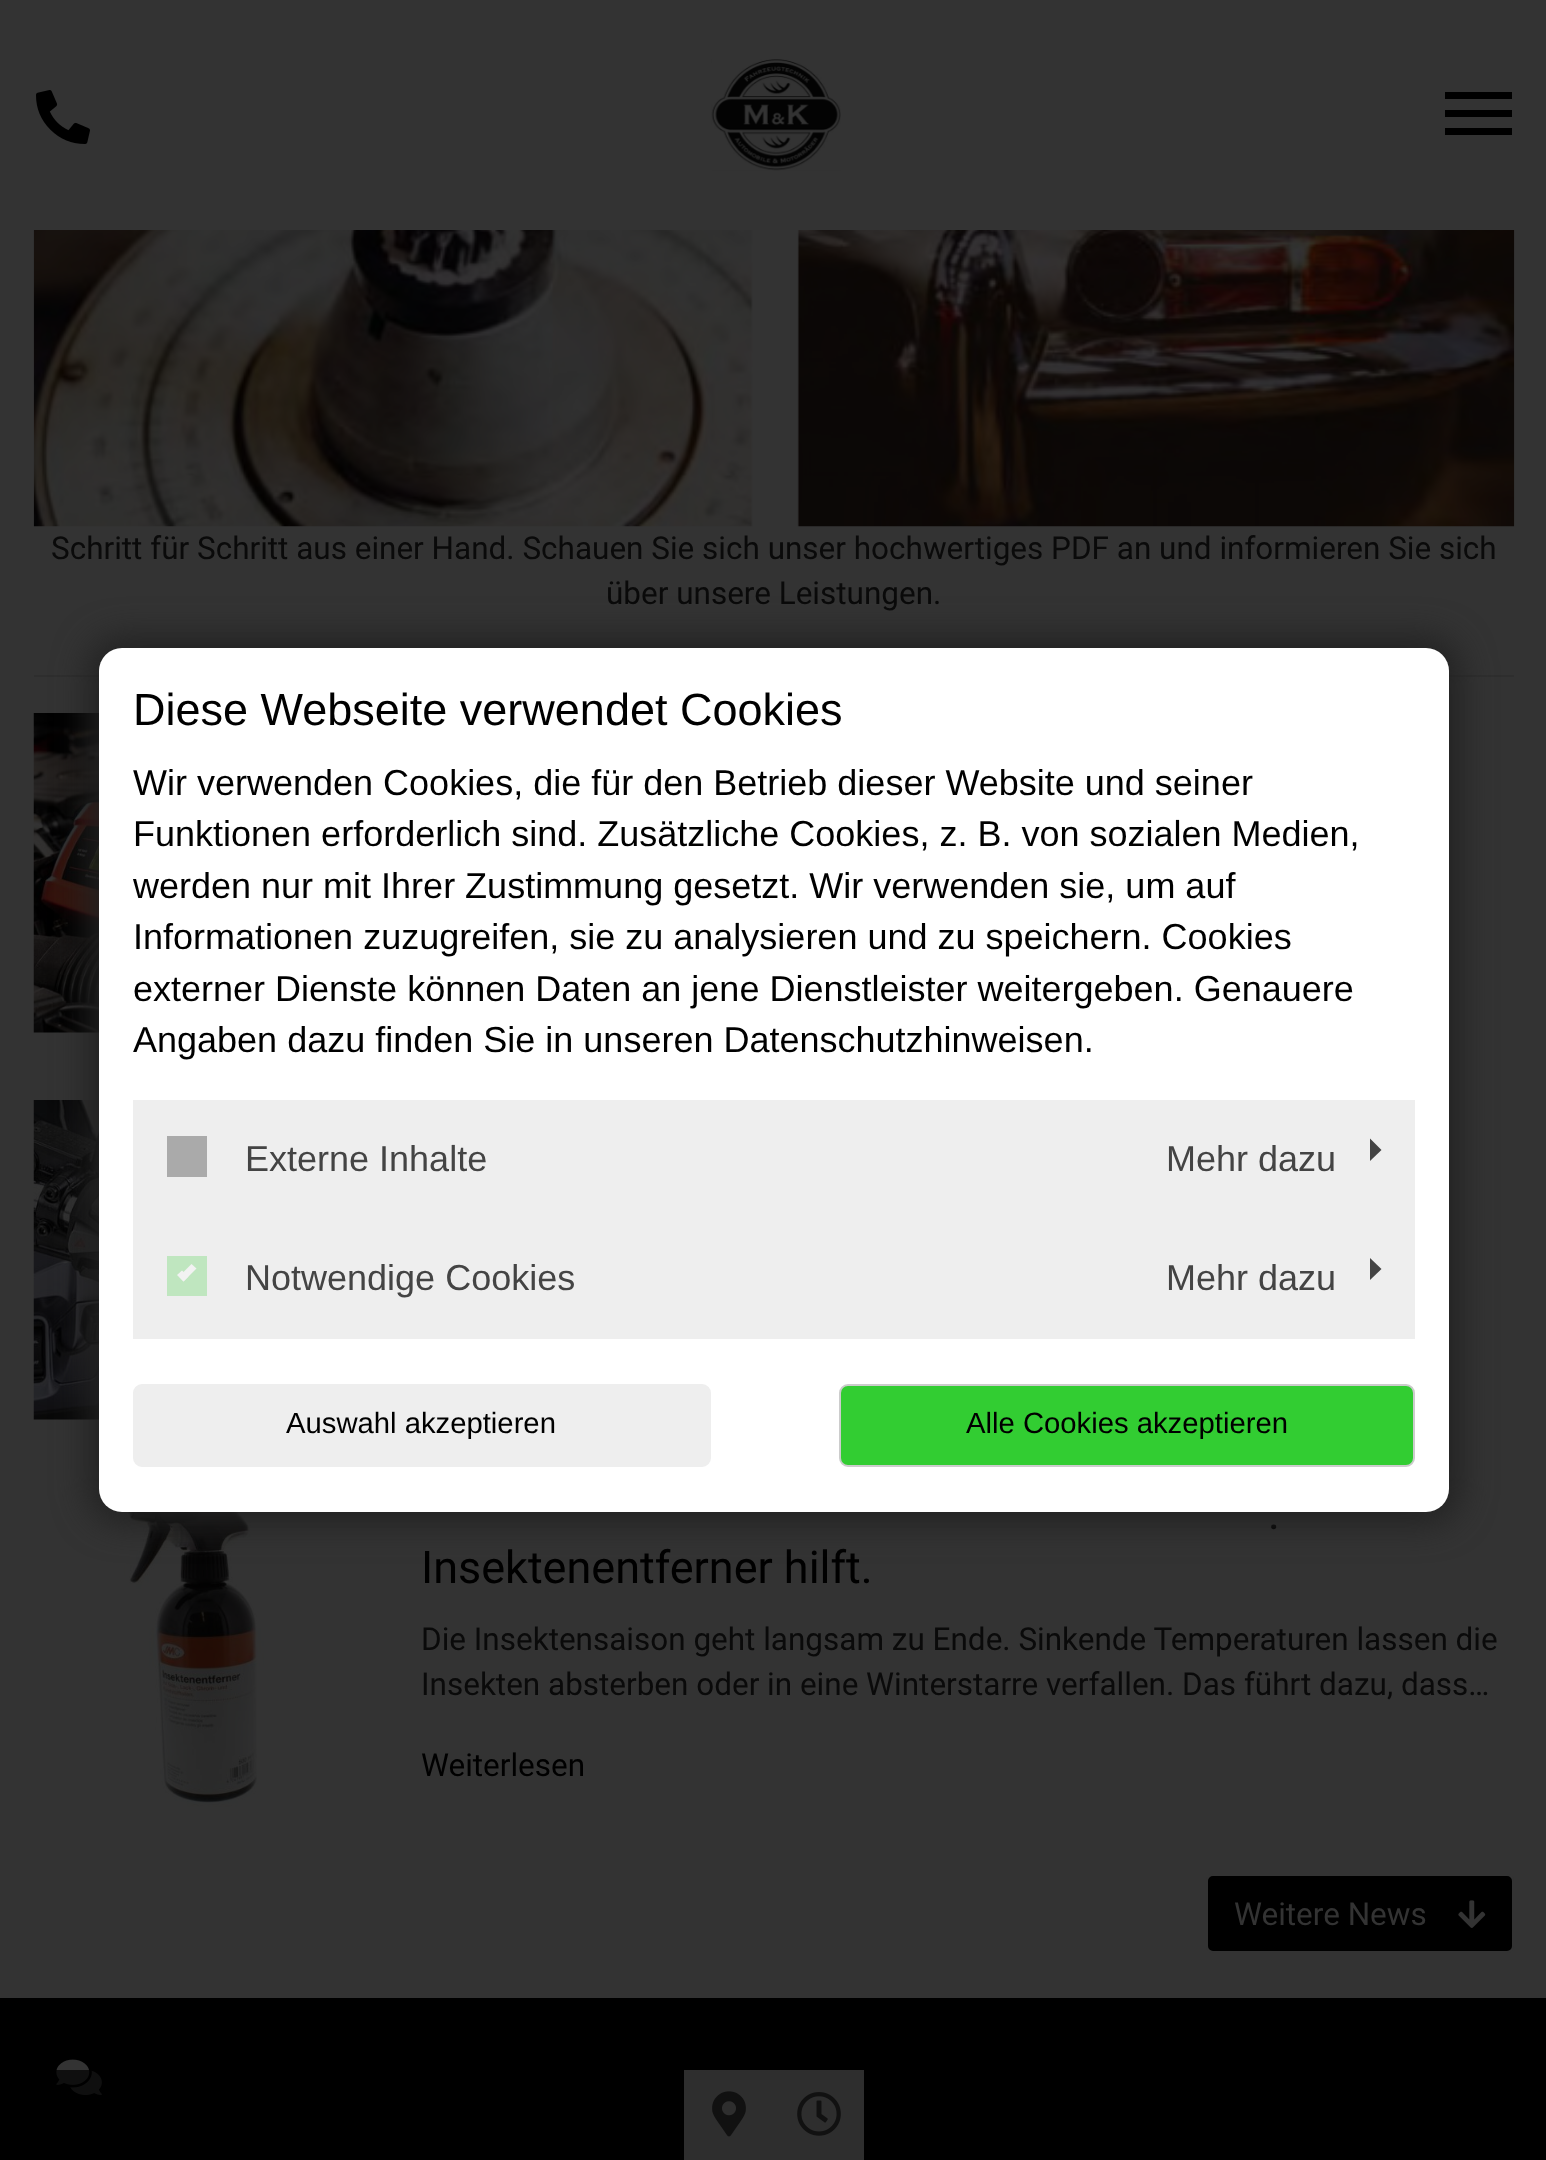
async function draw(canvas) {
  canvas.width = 1546;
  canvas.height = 2160;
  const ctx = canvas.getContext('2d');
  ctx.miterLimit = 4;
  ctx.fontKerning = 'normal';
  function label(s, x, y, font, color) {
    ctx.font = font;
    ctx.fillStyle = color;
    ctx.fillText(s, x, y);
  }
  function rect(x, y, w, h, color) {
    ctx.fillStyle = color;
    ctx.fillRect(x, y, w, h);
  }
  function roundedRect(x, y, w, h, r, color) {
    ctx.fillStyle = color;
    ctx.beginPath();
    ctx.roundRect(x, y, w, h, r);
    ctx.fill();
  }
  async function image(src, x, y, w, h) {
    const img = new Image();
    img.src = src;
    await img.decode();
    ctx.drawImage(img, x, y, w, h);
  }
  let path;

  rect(0, 0, 1546, 2160, '#333');
  await image('assets/img1.png', 36, 90, 54, 54);
  await image('assets/img2.png', 711, 59, 130, 112);
  rect(1445, 92, 67, 7, '#000');
  rect(1445, 110, 67, 7, '#000');
  rect(1445, 128, 67, 7, '#000');
  await image('assets/img3.png', 33, 230, 1482, 297);
  label('Schritt für Schritt aus einer Hand. Schauen Sie sich unser hochwertiges PDF an und informieren Sie sich', 51, 559, '31.5px Roboto', '#0a0a0a');
  label('über unsere Leistungen.', 606, 604, '31.5px Roboto', '#0a0a0a');
  rect(34, 675, 1480, 2, '#2e2e2e');
  await image('assets/img4.png', 33, 713, 66, 320);
  await image('assets/img5.png', 33, 1100, 66, 320);
  await image('assets/img6.png', 124, 1512, 140, 295);
  label('.', 1268, 1529, '45px Roboto', '#000');
  label('Insektenentferner hilft.', 421, 1583, '45px Roboto', '#000');
  label('Die Insektensaison geht langsam zu Ende. Sinkende Temperaturen lassen die', 421, 1650, '31.5px Roboto', '#0a0a0a');
  label('Insekten absterben oder in eine Winterstarre verfallen. Das führt dazu, dass…', 421, 1695, '31.5px Roboto', '#0a0a0a');
  label('Weiterlesen', 421, 1776, '31.5px Roboto', '#000');
  ctx.beginPath();
  ctx.roundRect(1207, 1875, 306, 77, 6);
  ctx.fill();
  ctx.strokeStyle = '#333';
  ctx.lineWidth = 2;
  ctx.stroke();
  label('Weitere News', 1234, 1925, '31.5px Roboto', '#333');
  await image('assets/img7.png', 1458, 1900, 28, 28);
  rect(0, 1998, 1546, 162, '#000');
  await image('assets/img8.png', 56, 2059, 46, 36);
  rect(56, 2070, 46, 25, '#000000b3');
  rect(684, 2070, 180, 90, '#2e2e2e');
  await image('assets/img9.png', 712, 2091, 34, 46);
  await image('assets/img10.png', 797, 2092, 44, 44);
  ctx.fillStyle = '#222';
  ctx.filter = 'blur(17px)';
  ctx.beginPath();
  ctx.roundRect(88, 637, 1372, 886, 34);
  ctx.fill();
  ctx.filter = 'none';
  roundedRect(99, 648, 1350, 864, 23, '#fff');
  label('Diese Webseite verwendet Cookies', 133, 725, '45px Liberation Sans', '#000');
  label('Wir verwenden Cookies, die für den Betrieb dieser Website und seiner', 133, 795, '36px Liberation Sans', '#000');
  label('Funktionen erforderlich sind. Zusätzliche Cookies, z. B. von sozialen Medien,', 133, 846, '36px Liberation Sans', '#000');
  label('werden nur mit Ihrer Zustimmung gesetzt. Wir verwenden sie, um auf', 133, 898, '36px Liberation Sans', '#000');
  label('Informationen zuzugreifen, sie zu analysieren und zu speichern. Cookies', 133, 949, '36px Liberation Sans', '#000');
  label('externer Dienste können Daten an jene Dienstleister weitergeben. Genauere', 133, 1001, '36px Liberation Sans', '#000');
  label('Angaben dazu finden Sie in unseren Datenschutzhinweisen.', 133, 1052, '36px Liberation Sans', '#000');
  rect(133, 1100, 1282, 239, '#eee');
  rect(167, 1136, 40, 41, '#aaa');
  label('Externe Inhalte', 245, 1171, '36px Liberation Sans', '#444');
  label('Mehr dazu', 1166, 1171, '36px Liberation Sans', '#444');
  path = new Path2D('M1370 1161V1138.5L1381.5 1150Z');
  ctx.fill(path);
  rect(167, 1256, 40, 40, '#bfe6bf');
  ctx.fillStyle = '#f2f2f2';
  path = new Path2D('M191.5 1264L196.5 1268.5L183.5 1281.5L179 1276.5Z');
  ctx.fill(path);
  path = new Path2D('M182 1270.5L188.5 1276.5L183.5 1281.5L177 1275Z');
  ctx.fill(path);
  label('Notwendige Cookies', 245, 1290, '36px Liberation Sans', '#444');
  label('Mehr dazu', 1166, 1290, '36px Liberation Sans', '#444');
  path = new Path2D('M1370 1280V1258L1381.5 1269Z');
  ctx.fill(path);
  ctx.fillStyle = '#eee';
  ctx.beginPath();
  ctx.roundRect(134, 1385, 576, 81, 8);
  ctx.fill();
  ctx.strokeStyle = '#eee';
  ctx.stroke();
  label('Auswahl akzeptieren', 286, 1433, '29.25px Liberation Sans', '#000');
  ctx.fillStyle = '#32cd32';
  ctx.beginPath();
  ctx.roundRect(840, 1385, 574, 81, 8);
  ctx.fill();
  ctx.strokeStyle = '#ccc';
  ctx.stroke();
  label('Alle Cookies akzeptieren', 966, 1433, '29.25px Liberation Sans', '#000');
}

draw(document.querySelector('canvas'));
